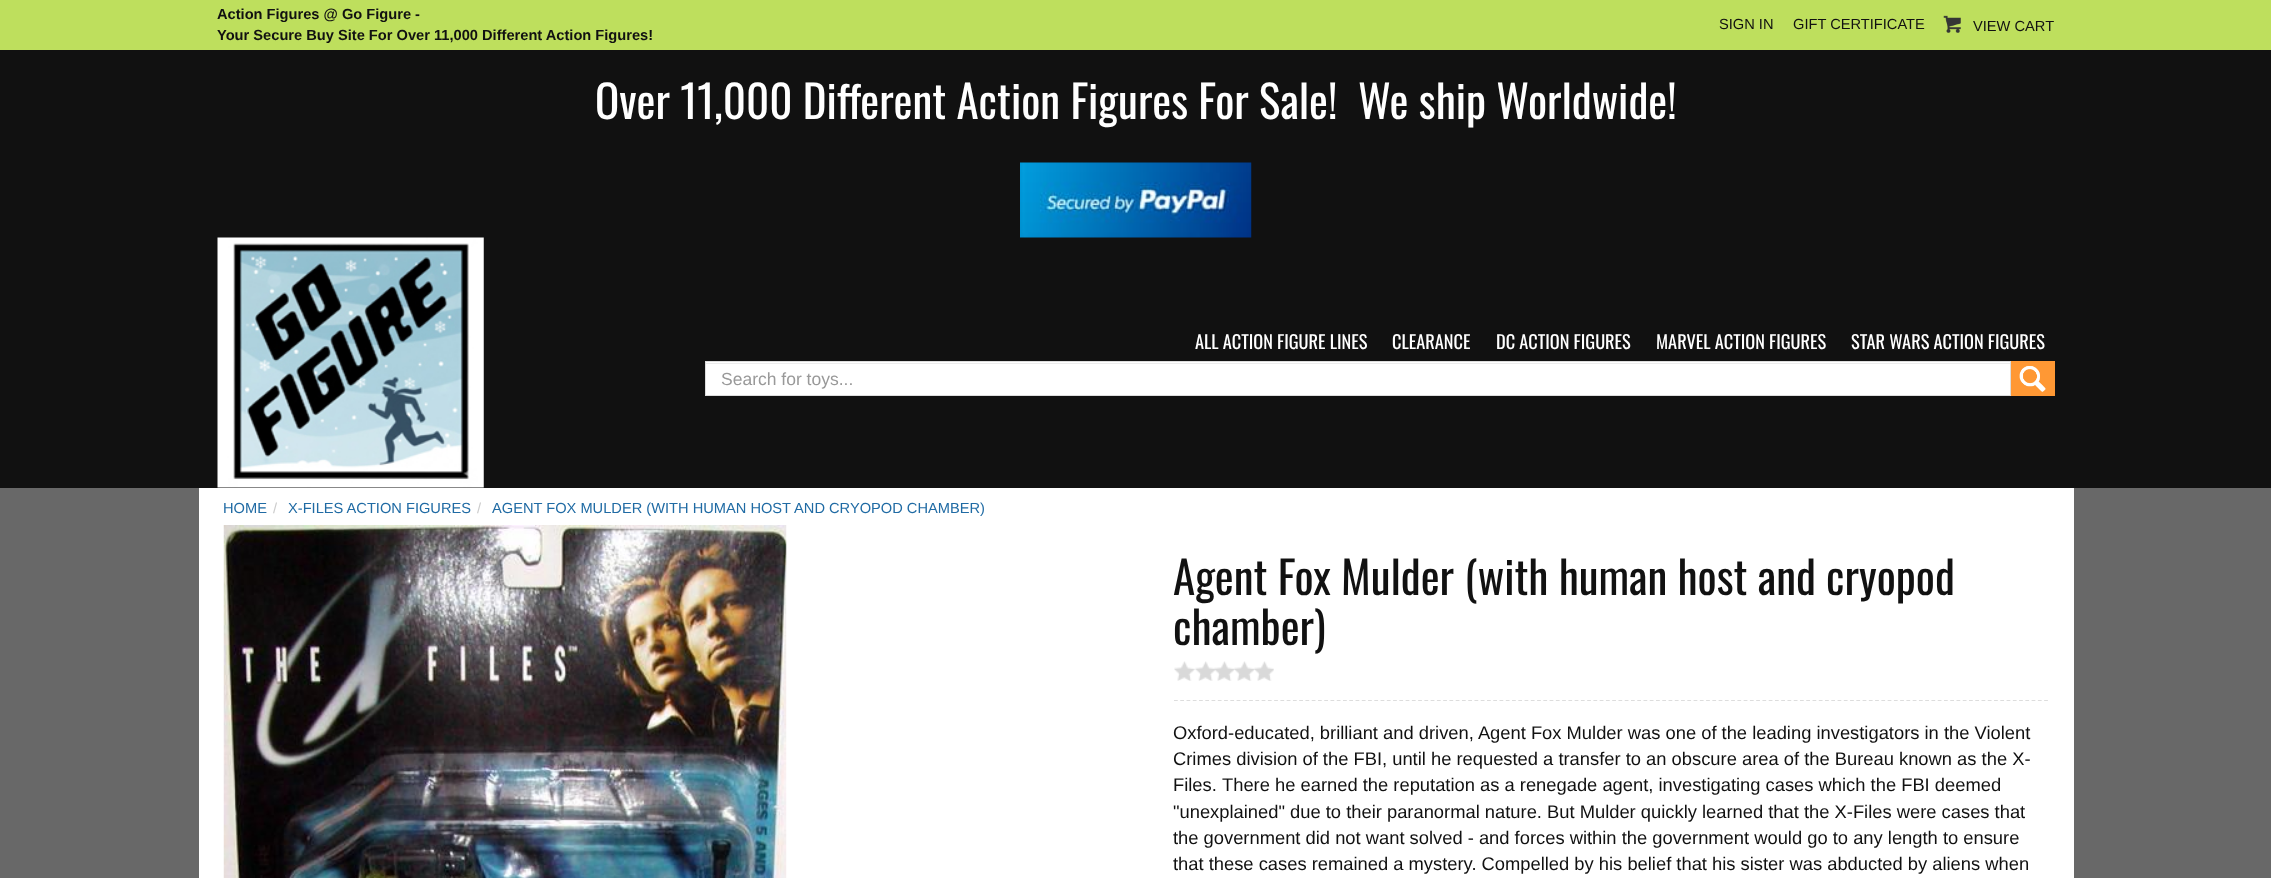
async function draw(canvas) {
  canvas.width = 2271;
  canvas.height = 878;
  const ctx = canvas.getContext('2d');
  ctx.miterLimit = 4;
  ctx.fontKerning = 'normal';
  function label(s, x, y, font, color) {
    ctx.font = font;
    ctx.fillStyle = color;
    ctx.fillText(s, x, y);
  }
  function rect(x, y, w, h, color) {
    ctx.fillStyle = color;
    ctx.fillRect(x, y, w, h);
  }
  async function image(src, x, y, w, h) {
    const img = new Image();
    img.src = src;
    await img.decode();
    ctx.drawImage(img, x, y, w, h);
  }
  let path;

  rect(0, 0, 2271, 878, '#686868');
  rect(0, 50, 2271, 438, '#111');
  rect(0, 0, 2271, 50, '#bedf5d');
  label('Action Figures @ Go Figure -', 217, 19, 'bold 14.65px Liberation Sans', '#111');
  label('Your Secure Buy Site For Over 11,000 Different Action Figures!', 217, 40, 'bold 14.65px Liberation Sans', '#111');
  label('SIGN IN', 1719, 29, '14.65px Liberation Sans', '#111');
  label('GIFT CERTIFICATE', 1793, 29, '14.65px Liberation Sans', '#111');
  await image('assets/img1.png', 1943, 15, 18, 18);
  label('VIEW CART', 1973, 31, '14.65px Liberation Sans', '#111');
  label('Over 11,000 Different Action Figures For Sale!  We ship Worldwide!', 595, 119, '45px Oswald', '#fff');
  await image('assets/img2.png', 1020, 162, 232, 76);
  await image('assets/img3.png', 217, 237, 267, 251);
  label('ALL ACTION FIGURE LINES', 1195, 349, '18.35px Oswald', '#fff');
  label('CLEARANCE', 1392, 349, '18.35px Oswald', '#fff');
  label('DC ACTION FIGURES', 1496, 349, '18.35px Oswald', '#fff');
  label('MARVEL ACTION FIGURES', 1656, 349, '18.35px Oswald', '#fff');
  label('STAR WARS ACTION FIGURES', 1851, 349, '18.35px Oswald', '#fff');
  rect(706, 362, 1304, 33, '#fff');
  rect(706, 363, 1304, 1, '#ececec');
  ctx.strokeStyle = '#ddd';
  ctx.strokeRect(705.5, 361.5, 1305, 34);
  label('Search for toys...', 721, 385, '17.5px Liberation Sans', '#999');
  rect(2011, 361, 44, 35, '#ff9834');
  await image('assets/img4.png', 2019, 366, 27, 26);
  rect(199, 488, 1875, 390, '#fff');
  label('HOME', 223, 513, '14.65px Liberation Sans', '#206ba4');
  label('/', 273, 513, '14.65px Liberation Sans', '#ccc');
  label('X-FILES ACTION FIGURES', 288, 513, '14.65px Liberation Sans', '#206ba4');
  label('/', 477, 513, '14.65px Liberation Sans', '#ccc');
  label('AGENT FOX MULDER (WITH HUMAN HOST AND CRYOPOD CHAMBER)', 492, 513, '14.65px Liberation Sans', '#206ba4');
  await image('assets/img5.png', 223, 525, 564, 353);
  label('Agent Fox Mulder (with human host and cryopod', 1173, 595, '45px Oswald', '#111');
  label('chamber)', 1173, 645, '45px Oswald', '#111');
  await image('assets/img6.png', 1174, 661, 100, 20);
  path = new Path2D('M1174 700.5H2049');
  ctx.lineWidth = 1.2;
  ctx.setLineDash([3.75, 2.51]);
  ctx.stroke(path);
  label('Oxford-educated, brilliant and driven, Agent Fox Mulder was one of the leading investigators in the Violent', 1173, 739, '18.35px Liberation Sans', '#111');
  label('Crimes division of the FBI, until he requested a transfer to an obscure area of the Bureau known as the X-', 1173, 765, '18.35px Liberation Sans', '#111');
  label('Files.', 1173, 791, '18.35px Liberation Sans', '#111');
  label('There he earned the reputation as a renegade agent, investigating cases which the FBI deemed', 1222, 791, '18.35px Liberation Sans', '#111');
  label('"unexplained" due to their paranormal nature. But Mulder quickly learned that the X-Files were cases that', 1173, 818, '18.35px Liberation Sans', '#111');
  label('the government did not want solved - and forces within the government would go to any length to ensure', 1173, 844, '18.35px Liberation Sans', '#111');
  label('that these cases remained a mystery. Compelled by his belief that his sister was abducted by aliens when', 1173, 870, '18.35px Liberation Sans', '#111');
}

draw(document.querySelector('canvas'));
